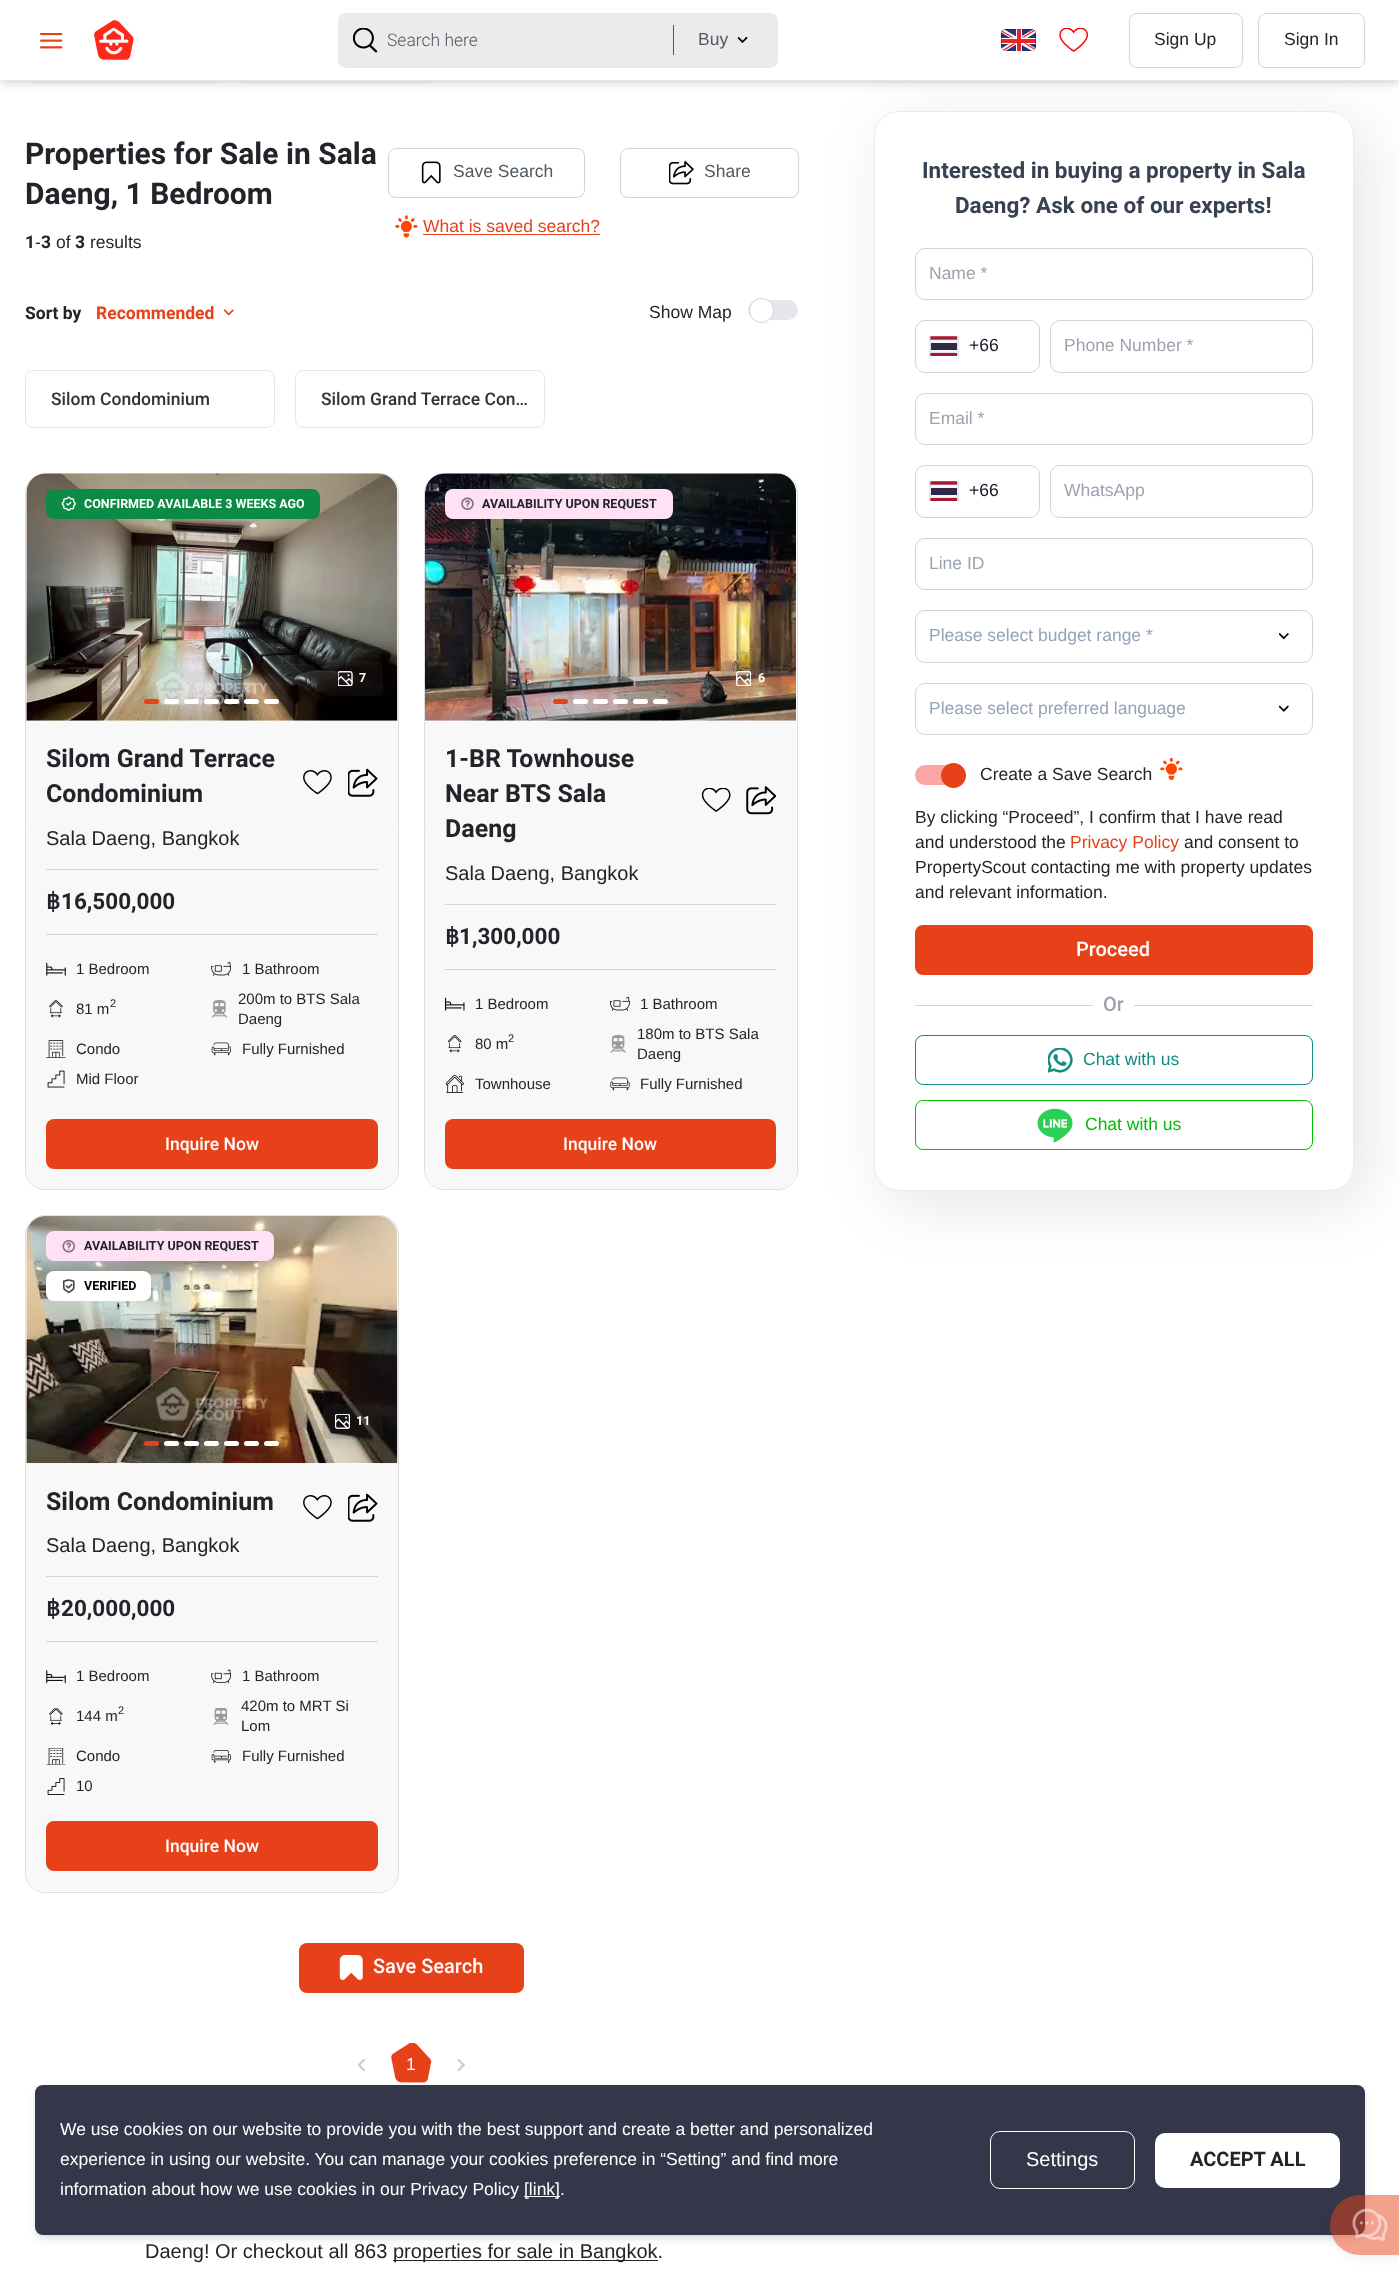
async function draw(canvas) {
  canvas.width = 1399;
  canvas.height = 2275;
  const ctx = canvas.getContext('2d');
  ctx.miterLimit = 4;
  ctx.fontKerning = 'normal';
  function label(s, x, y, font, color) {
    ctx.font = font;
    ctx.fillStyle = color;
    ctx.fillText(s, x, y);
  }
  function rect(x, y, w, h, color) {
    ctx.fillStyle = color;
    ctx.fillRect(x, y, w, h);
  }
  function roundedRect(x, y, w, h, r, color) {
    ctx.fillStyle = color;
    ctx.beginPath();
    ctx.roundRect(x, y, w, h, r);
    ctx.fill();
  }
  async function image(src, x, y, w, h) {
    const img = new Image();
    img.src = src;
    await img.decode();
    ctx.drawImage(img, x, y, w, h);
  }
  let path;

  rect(0, 0, 1399, 2275, '#fff');
  roundedRect(25, 29, 200, 55, 13, '#f8f8f8');
  roundedRect(235, 29, 200, 55, 13, '#f8f8f8');
  ctx.fillStyle = '#0000001a';
  ctx.filter = 'blur(2.5px)';
  ctx.beginPath();
  ctx.rect(3, 5, 1395, 76);
  ctx.fill();
  ctx.filter = 'none';
  ctx.filter = 'blur(4px)';
  ctx.beginPath();
  ctx.rect(1, 6, 1398, 79);
  ctx.fill();
  ctx.filter = 'none';
  ctx.beginPath();
  ctx.roundRect(620.5, 148.5, 178, 49, 7.5);
  ctx.strokeStyle = '#d1d5db';
  ctx.stroke();
  roundedRect(748, 300, 50, 20, 10, '#e5e7eb');
  ctx.beginPath();
  ctx.roundRect(424.5, 473.5, 373, 716, 19.5);
  ctx.strokeStyle = '#dfdfdf';
  ctx.stroke();
  ctx.fillStyle = '#f8f8f8';
  ctx.beginPath();
  ctx.roundRect(425, 721, 371, 468, [0, 0, 19, 19]);
  ctx.fill();
  ctx.fillStyle = '#0000001a';
  ctx.filter = 'blur(31px)';
  ctx.beginPath();
  ctx.roundRect(886, 124, 480, 1080, 25);
  ctx.fill();
  ctx.filter = 'none';
  rect(0, 0, 1399, 80, '#fff');
  rect(0, 80, 1399, 1, '#e5e7eb');
  await image('assets/img1.png', 40, 33, 23, 16);
  await image('assets/img2.png', 94, 20, 40, 40);
  roundedRect(338, 13, 440, 55, 8, '#ebebeb');
  await image('assets/img3.png', 353, 28, 25, 25);
  label('Search here', 387, 46, '300 17.5px Roboto', '#4f5962');
  rect(673, 25, 1, 30, '#4f5962');
  label('Buy', 698, 45, '17.5px Liberation Sans', '#4f5962');
  await image('assets/img4.png', 738, 36, 10, 7);
  await image('assets/img5.png', 1001, 29, 35, 22);
  await image('assets/img6.png', 1059, 28, 29, 24);
  ctx.beginPath();
  ctx.roundRect(1129.5, 13.5, 113, 54, 7.5);
  ctx.strokeStyle = '#d1d5db';
  ctx.stroke();
  label('Sign Up', 1154, 45, '17.5px Liberation Sans', '#212529');
  ctx.beginPath();
  ctx.roundRect(1258.5, 13.5, 106, 54, 7.5);
  ctx.stroke();
  label('Sign In', 1284, 45, '17.5px Liberation Sans', '#212529');
  label('Properties for Sale in Sala', 25, 164, 'bold 30px Roboto', '#212529');
  label('Daeng, 1 Bedroom', 25, 204, 'bold 30px Roboto', '#212529');
  label('1', 25, 248, 'bold 17.5px Roboto', '#212529');
  label('-', 35, 248, '17.5px Liberation Sans', '#212529');
  label('3', 41, 248, 'bold 17.5px Roboto', '#212529');
  label('of', 56, 248, '17.5px Liberation Sans', '#212529');
  label('3', 75, 248, 'bold 17.5px Roboto', '#212529');
  label('results', 90, 248, '17.5px Liberation Sans', '#212529');
  ctx.beginPath();
  ctx.roundRect(388.5, 148.5, 196, 49, 7.5);
  ctx.stroke();
  await image('assets/img7.png', 421, 161, 20, 23);
  label('Save Search', 453, 177, '17.5px Liberation Sans', '#4f5962');
  await image('assets/img8.png', 395, 215, 23, 23);
  label('What is saved search?', 423, 232, '17.5px Liberation Sans', '#e74119');
  rect(423, 234, 177, 1, '#e74119');
  await image('assets/img9.png', 669, 161, 25, 24);
  label('Share', 704, 177, '17.5px Liberation Sans', '#4f5962');
  label('Sort by', 25, 319, 'bold 17.5px Roboto', '#212529');
  label('Recommended', 96, 319, 'bold 17.5px Roboto', '#e74119');
  await image('assets/img10.png', 223, 309, 11, 7);
  label('Show Map', 649, 318, '17.5px Liberation Sans', '#212529');
  ctx.fillStyle = '#fff';
  ctx.beginPath();
  ctx.arc(761.5, 310.5, 12, 0, 2 * Math.PI);
  ctx.fill();
  ctx.stroke();
  ctx.beginPath();
  ctx.roundRect(25.5, 370.5, 249, 57, 7.5);
  ctx.strokeStyle = '#e5e7eb';
  ctx.stroke();
  label('Silom Condominium', 51, 405, '500 17.5px Roboto', '#333');
  ctx.beginPath();
  ctx.roundRect(295.5, 370.5, 249, 57, 7.5);
  ctx.stroke();
  label('Silom Grand Terrace Con…', 321, 405, '500 17.5px Roboto', '#333');
  ctx.beginPath();
  ctx.roundRect(25.5, 473.5, 373, 716, 19.5);
  ctx.strokeStyle = '#dfdfdf';
  ctx.stroke();
  await image('assets/img12.png', 26, 473, 372, 248);
  roundedRect(46, 489, 274, 30, 8, '#0c8b46');
  await image('assets/img11.png', 61, 496, 15, 15);
  label('CONFIRMED AVAILABLE 3 WEEKS AGO', 84, 508, 'bold 12.5px Roboto', '#fff');
  roundedRect(144, 699, 15, 5, 2.5, '#e74119');
  roundedRect(164, 699, 15, 5, 2.5, '#fff');
  roundedRect(184, 699, 15, 5, 2.5, '#fff');
  roundedRect(204, 699, 15, 5, 2.5, '#fff');
  roundedRect(224, 699, 15, 5, 2.5, '#fff');
  roundedRect(244, 699, 15, 5, 2.5, '#fff');
  roundedRect(264, 699, 15, 5, 2.5, '#fff');
  roundedRect(323, 661, 60, 35, 5, '#33333333');
  await image('assets/img13.png', 338, 671, 15, 15);
  label('7', 359, 682, 'bold 12.5px Roboto', '#fff');
  ctx.fillStyle = '#f8f8f8';
  ctx.beginPath();
  ctx.roundRect(26, 721, 372, 468, [0, 0, 19, 19]);
  ctx.fill();
  label('Silom Grand Terrace', 46, 767, 'bold 25px Roboto', '#212529');
  label('Condominium', 46, 802, 'bold 25px Roboto', '#212529');
  await image('assets/img14.png', 303, 770, 29, 25);
  await image('assets/img15.png', 348, 768, 30, 29);
  label('Sala Daeng, Bangkok', 46, 845, '20px Liberation Sans', '#212529');
  rect(46, 869, 332, 1, '#d1d5db');
  label('฿', 46, 909, 'bold 22.5px DejaVu Sans', '#212529');
  label('16,500,000', 61, 909, 'bold 22.5px Roboto', '#212529');
  rect(46, 934, 332, 1, '#d1d5db');
  await image('assets/img16.png', 46, 962, 20, 14);
  label('1 Bedroom', 76, 974, '15px Liberation Sans', '#212529');
  await image('assets/img17.png', 211, 962, 20, 14);
  label('1 Bathroom', 242, 974, '15px Liberation Sans', '#212529');
  await image('assets/img18.png', 49, 1000, 14, 18);
  label('81 m', 76, 1014, '15px Liberation Sans', '#212529');
  label('2', 110, 1007, '11px Liberation Sans', '#212529');
  await image('assets/img19.png', 211, 1000, 16, 18);
  label('200m to BTS Sala', 238, 1004, '15px Liberation Sans', '#212529');
  label('Daeng', 238, 1024, '15px Liberation Sans', '#212529');
  await image('assets/img20.png', 46, 1040, 20, 18);
  label('Condo', 76, 1054, '15px Liberation Sans', '#212529');
  await image('assets/img21.png', 211, 1042, 20, 14);
  label('Fully Furnished', 242, 1054, '15px Liberation Sans', '#212529');
  await image('assets/img22.png', 47, 1070, 18, 18);
  label('Mid Floor', 76, 1084, '15px Liberation Sans', '#212529');
  roundedRect(46, 1119, 332, 50, 8, '#e74119');
  label('Inquire Now', 165, 1150, '500 17.5px Roboto', '#fff');
  await image('assets/img24.png', 425, 473, 371, 248);
  roundedRect(445, 489, 228, 30, 8, '#ffe1f5');
  await image('assets/img23.png', 461, 497, 13, 13);
  label('AVAILABILITY UPON REQUEST', 482, 508, 'bold 12.5px Roboto', '#212529');
  roundedRect(553, 699, 15, 5, 2.5, '#e74119');
  roundedRect(573, 699, 15, 5, 2.5, '#fff');
  roundedRect(593, 699, 15, 5, 2.5, '#fff');
  roundedRect(613, 699, 15, 5, 2.5, '#fff');
  roundedRect(633, 699, 15, 5, 2.5, '#fff');
  roundedRect(653, 699, 15, 5, 2.5, '#fff');
  ctx.save();
  path = new Path2D('M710 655H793V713H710ZM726 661H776C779 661 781 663 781 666V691C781 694 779 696 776 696H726C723 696 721 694 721 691V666C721 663 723 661 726 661Z');
  ctx.clip(path, 'evenodd');
  ctx.fillStyle = '#0000001a';
  ctx.filter = 'blur(4px)';
  ctx.beginPath();
  ctx.roundRect(723, 668, 57, 32, 4);
  ctx.fill();
  ctx.filter = 'none';
  ctx.restore();
  roundedRect(721, 661, 60, 35, 5, '#33333333');
  await image('assets/img25.png', 736, 671, 15, 15);
  label('6', 758, 682, 'bold 12.5px Roboto', '#fff');
  label('1-BR Townhouse', 445, 767, 'bold 25px Roboto', '#212529');
  label('Near BTS Sala', 445, 802, 'bold 25px Roboto', '#212529');
  label('Daeng', 445, 837, 'bold 25px Roboto', '#212529');
  await image('assets/img26.png', 701, 788, 30, 24);
  await image('assets/img27.png', 746, 786, 30, 29);
  label('Sala Daeng, Bangkok', 445, 880, '20px Liberation Sans', '#212529');
  rect(445, 904, 331, 1, '#d1d5db');
  label('฿', 445, 944, 'bold 22.5px DejaVu Sans', '#212529');
  label('1,300,000', 459, 944, 'bold 22.5px Roboto', '#212529');
  rect(445, 969, 331, 1, '#d1d5db');
  await image('assets/img28.png', 445, 997, 20, 14);
  label('1 Bedroom', 475, 1009, '15px Liberation Sans', '#212529');
  await image('assets/img29.png', 610, 997, 20, 14);
  label('1 Bathroom', 640, 1009, '15px Liberation Sans', '#212529');
  await image('assets/img30.png', 448, 1035, 14, 18);
  label('80 m', 475, 1049, '15px Liberation Sans', '#212529');
  label('2', 508, 1042, '11px Liberation Sans', '#212529');
  await image('assets/img31.png', 610, 1035, 16, 18);
  label('180m to BTS Sala', 637, 1039, '15px Liberation Sans', '#212529');
  label('Daeng', 637, 1059, '15px Liberation Sans', '#212529');
  await image('assets/img32.png', 445, 1075, 19, 18);
  label('Townhouse', 475, 1089, '15px Liberation Sans', '#212529');
  await image('assets/img33.png', 610, 1077, 20, 14);
  label('Fully Furnished', 640, 1089, '15px Liberation Sans', '#212529');
  roundedRect(445, 1119, 331, 50, 8, '#e74119');
  label('Inquire Now', 563, 1150, '500 17.5px Roboto', '#fff');
  ctx.beginPath();
  ctx.roundRect(25.5, 1215.5, 373, 677, 19.5);
  ctx.stroke();
  await image('assets/img36.png', 26, 1216, 372, 248);
  roundedRect(46, 1231, 228, 30, 8, '#ffe1f5');
  await image('assets/img34.png', 62, 1240, 13, 13);
  label('AVAILABILITY UPON REQUEST', 84, 1250, 'bold 12.5px Roboto', '#212529');
  roundedRect(46, 1271, 105, 30, 8, '#fff');
  await image('assets/img35.png', 62, 1279, 13, 15);
  label('VERIFIED', 84, 1290, 'bold 12.5px Roboto', '#000');
  roundedRect(144, 1441, 15, 5, 2.5, '#e74119');
  roundedRect(164, 1441, 15, 5, 2.5, '#fff');
  roundedRect(184, 1441, 15, 5, 2.5, '#fff');
  roundedRect(204, 1441, 15, 5, 2.5, '#fff');
  roundedRect(224, 1441, 15, 5, 2.5, '#fff');
  roundedRect(244, 1441, 15, 5, 2.5, '#fff');
  roundedRect(264, 1441, 15, 5, 2.5, '#fff');
  ctx.save();
  path = new Path2D('M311 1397H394V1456H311ZM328 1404H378C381 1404 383 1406 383 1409V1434C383 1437 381 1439 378 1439H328C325 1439 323 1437 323 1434V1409C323 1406 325 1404 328 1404Z');
  ctx.clip(path, 'evenodd');
  ctx.fillStyle = '#0000001a';
  ctx.filter = 'blur(4px)';
  ctx.beginPath();
  ctx.roundRect(324, 1410, 57, 33, 4);
  ctx.fill();
  ctx.filter = 'none';
  ctx.restore();
  roundedRect(323, 1404, 60, 35, 5, '#33333333');
  await image('assets/img37.png', 335, 1414, 15, 15);
  label('11', 356, 1425, 'bold 12.5px Roboto', '#fff');
  ctx.fillStyle = '#f8f8f8';
  ctx.beginPath();
  ctx.roundRect(26, 1464, 372, 427, [0, 0, 19, 19]);
  ctx.fill();
  label('Silom Condominium', 46, 1510, 'bold 25px Roboto', '#212529');
  await image('assets/img14.png', 303, 1495, 29, 25);
  await image('assets/img15.png', 348, 1493, 30, 29);
  label('Sala Daeng, Bangkok', 46, 1552, '20px Liberation Sans', '#212529');
  rect(46, 1576, 332, 1, '#d1d5db');
  label('฿', 46, 1616, 'bold 22.5px DejaVu Sans', '#212529');
  label('20,000,000', 61, 1616, 'bold 22.5px Roboto', '#212529');
  rect(46, 1641, 332, 1, '#d1d5db');
  await image('assets/img38.png', 46, 1670, 20, 14);
  label('1 Bedroom', 76, 1681, '15px Liberation Sans', '#212529');
  await image('assets/img39.png', 211, 1669, 20, 15);
  label('1 Bathroom', 242, 1681, '15px Liberation Sans', '#212529');
  await image('assets/img40.png', 49, 1708, 14, 17);
  label('144 m', 76, 1721, '15px Liberation Sans', '#212529');
  label('2', 118, 1714, '11px Liberation Sans', '#212529');
  label('420m to MRT Si', 241, 1711, '15px Liberation Sans', '#212529');
  await image('assets/img41.png', 213, 1708, 16, 17);
  label('Lom', 241, 1731, '15px Liberation Sans', '#212529');
  await image('assets/img42.png', 46, 1748, 20, 17);
  label('Condo', 76, 1761, '15px Liberation Sans', '#212529');
  await image('assets/img43.png', 211, 1750, 20, 13);
  label('Fully Furnished', 242, 1761, '15px Liberation Sans', '#212529');
  await image('assets/img44.png', 47, 1778, 18, 17);
  label('10', 76, 1791, '15px Liberation Sans', '#212529');
  roundedRect(46, 1821, 332, 50, 8, '#e74119');
  label('Inquire Now', 165, 1852, '500 17.5px Roboto', '#fff');
  roundedRect(299, 1943, 225, 50, 8, '#e74119');
  await image('assets/img45.png', 339, 1955, 24, 25);
  label('Save Search', 373, 1973, '500 20px Roboto', '#fff');
  await image('assets/img46.png', 357, 2059, 8, 12);
  await image('assets/img47.png', 391, 2043, 41, 40);
  label('1', 406, 2070, '17.5px Liberation Sans', '#fff');
  await image('assets/img48.png', 457, 2059, 8, 12);
  label('Daeng! Or checkout all 863', 145, 2258, '20px Liberation Sans', '#212529');
  rect(393, 2260, 265, 1, '#212529');
  label('properties for sale in Bangkok.', 393, 2258, '20px Liberation Sans', '#212529');
  roundedRect(874, 111, 480, 1080, 25, '#fff');
  ctx.beginPath();
  ctx.roundRect(874.5, 111.5, 479, 1079, 24.5);
  ctx.strokeStyle = '#3333331a';
  ctx.stroke();
  label('Interested in buying a property in Sala', 922, 178, 'bold 22.5px Roboto', '#374151');
  label('Daeng? Ask one of our experts!', 955, 213, 'bold 22.5px Roboto', '#374151');
  ctx.beginPath();
  ctx.roundRect(915.5, 248.5, 397, 51, 9.5);
  ctx.strokeStyle = '#d1d5db';
  ctx.stroke();
  label('Name *', 929, 279, '17.5px Liberation Sans', '#9ca3af');
  ctx.beginPath();
  ctx.roundRect(915.5, 320.5, 124, 52, 9.5);
  ctx.stroke();
  rect(929, 336, 30, 20, '#e5e7eb');
  await image('assets/img49.png', 930, 336, 28, 20);
  label('+66', 969, 351, '17.5px Liberation Sans', '#111827');
  ctx.beginPath();
  ctx.roundRect(1050.5, 320.5, 262, 52, 9.5);
  ctx.stroke();
  label('Phone Number *', 1064, 351, '17.5px Liberation Sans', '#9ca3af');
  ctx.beginPath();
  ctx.roundRect(915.5, 393.5, 397, 51, 9.5);
  ctx.stroke();
  label('Email *', 929, 424, '17.5px Liberation Sans', '#9ca3af');
  ctx.beginPath();
  ctx.roundRect(915.5, 465.5, 124, 52, 9.5);
  ctx.stroke();
  rect(929, 481, 30, 20, '#e5e7eb');
  await image('assets/img49.png', 930, 481, 28, 20);
  label('+66', 969, 496, '17.5px Liberation Sans', '#111827');
  ctx.beginPath();
  ctx.roundRect(1050.5, 465.5, 262, 52, 9.5);
  ctx.stroke();
  label('WhatsApp', 1064, 496, '17.5px Liberation Sans', '#9ca3af');
  ctx.beginPath();
  ctx.roundRect(915.5, 538.5, 397, 51, 9.5);
  ctx.stroke();
  label('Line ID', 929, 569, '17.5px Liberation Sans', '#9ca3af');
  ctx.beginPath();
  ctx.roundRect(915.5, 610.5, 397, 52, 9.5);
  ctx.stroke();
  label('Please select budget range *', 929, 641, '17.5px Liberation Sans', '#94a3b8');
  await image('assets/img50.png', 1279, 633, 10, 7);
  ctx.beginPath();
  ctx.roundRect(915.5, 683.5, 397, 51, 9.5);
  ctx.stroke();
  label('Please select preferred language', 929, 714, '17.5px Liberation Sans', '#94a3b8');
  await image('assets/img51.png', 1279, 705, 10, 7);
  roundedRect(915, 765, 50, 20, 10, '#fca5a5');
  ctx.fillStyle = '#e74119';
  ctx.beginPath();
  ctx.arc(953.5, 775.5, 12.5, 0, 2 * Math.PI);
  ctx.fill();
  label('Create a Save Search', 980, 780, '17.5px Liberation Sans', '#212529');
  await image('assets/img52.png', 1160, 757, 23, 23);
  label('By clicking “Proceed”, I confirm that I have read', 915, 823, '17.5px Liberation Sans', '#212529');
  label('and understood the', 915, 848, '17.5px Liberation Sans', '#212529');
  label('Privacy Policy', 1070, 848, '17.5px Liberation Sans', '#e74119');
  label('and consent to', 1184, 848, '17.5px Liberation Sans', '#212529');
  label('PropertyScout contacting me with property updates', 915, 873, '17.5px Liberation Sans', '#212529');
  label('and relevant information.', 915, 898, '17.5px Liberation Sans', '#212529');
  roundedRect(915, 925, 398, 50, 8, '#e74119');
  label('Proceed', 1076, 956, '500 20px Roboto', '#fff');
  rect(915, 1005, 398, 1, '#d1d5db');
  rect(1093, 1005, 41, 1, '#fff');
  label('Or', 1103, 1011, '500 20px Roboto', '#9ca3af');
  ctx.beginPath();
  ctx.roundRect(915.5, 1035.5, 397, 49, 7.5);
  ctx.strokeStyle = '#118c7e';
  ctx.stroke();
  await image('assets/img53.png', 1048, 1048, 25, 25);
  label('Chat with us', 1083, 1065, '17.5px Liberation Sans', '#118c7e');
  ctx.beginPath();
  ctx.roundRect(915.5, 1100.5, 397, 49, 7.5);
  ctx.strokeStyle = '#03bd00';
  ctx.stroke();
  await image('assets/img54.png', 1037, 1108, 36, 35);
  label('Chat with us', 1085, 1130, '17.5px Liberation Sans', '#03bd00');
  ctx.fillStyle = '#0000001a';
  ctx.filter = 'blur(2.5px)';
  ctx.beginPath();
  ctx.roundRect(38, 2090, 1325, 145, 5);
  ctx.fill();
  ctx.filter = 'none';
  ctx.filter = 'blur(4px)';
  ctx.beginPath();
  ctx.roundRect(36, 2091, 1328, 148, 6);
  ctx.fill();
  ctx.filter = 'none';
  roundedRect(35, 2085, 1330, 150, 8, '#34364a');
  label('We use cookies on our website to provide you with the best support and create a better and personalized', 60, 2135, '17.5px Liberation Sans', '#fff');
  label('experience in using our website. You can manage your cookies preference in “Setting” and find more', 60, 2165, '17.5px Liberation Sans', '#fff');
  label('information about how we use cookies in our Privacy Policy', 60, 2195, '17.5px Liberation Sans', '#fff');
  rect(524, 2196, 36, 1, '#fff');
  label('[link].', 524, 2195, '17.5px Liberation Sans', '#fff');
  ctx.beginPath();
  ctx.roundRect(990.5, 2131.5, 144, 57, 9.5);
  ctx.strokeStyle = '#fff';
  ctx.stroke();
  label('Settings', 1026, 2166, '20px Liberation Sans', '#fff');
  roundedRect(1155, 2133, 185, 55, 10, '#fff');
  label('ACCEPT ALL', 1190, 2166, 'bold 20px Roboto', '#212529');
  ctx.save();
  path = new Path2D('M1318 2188H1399V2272H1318ZM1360 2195H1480C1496.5 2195 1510 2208.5 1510 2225C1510 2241.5 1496.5 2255 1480 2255H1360C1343.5 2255 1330 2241.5 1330 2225C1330 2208.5 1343.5 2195 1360 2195Z');
  ctx.clip(path, 'evenodd');
  ctx.fillStyle = '#0000000d';
  ctx.filter = 'blur(4px)';
  ctx.beginPath();
  ctx.roundRect(1331, 2201, 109, 58, 29);
  ctx.fill();
  ctx.filter = 'none';
  ctx.restore();
  roundedRect(1330, 2195, 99, 60, 30, '#e7411980');
  await image('assets/img55.png', 1352, 2208, 36, 33);
}

draw(document.querySelector('canvas'));
